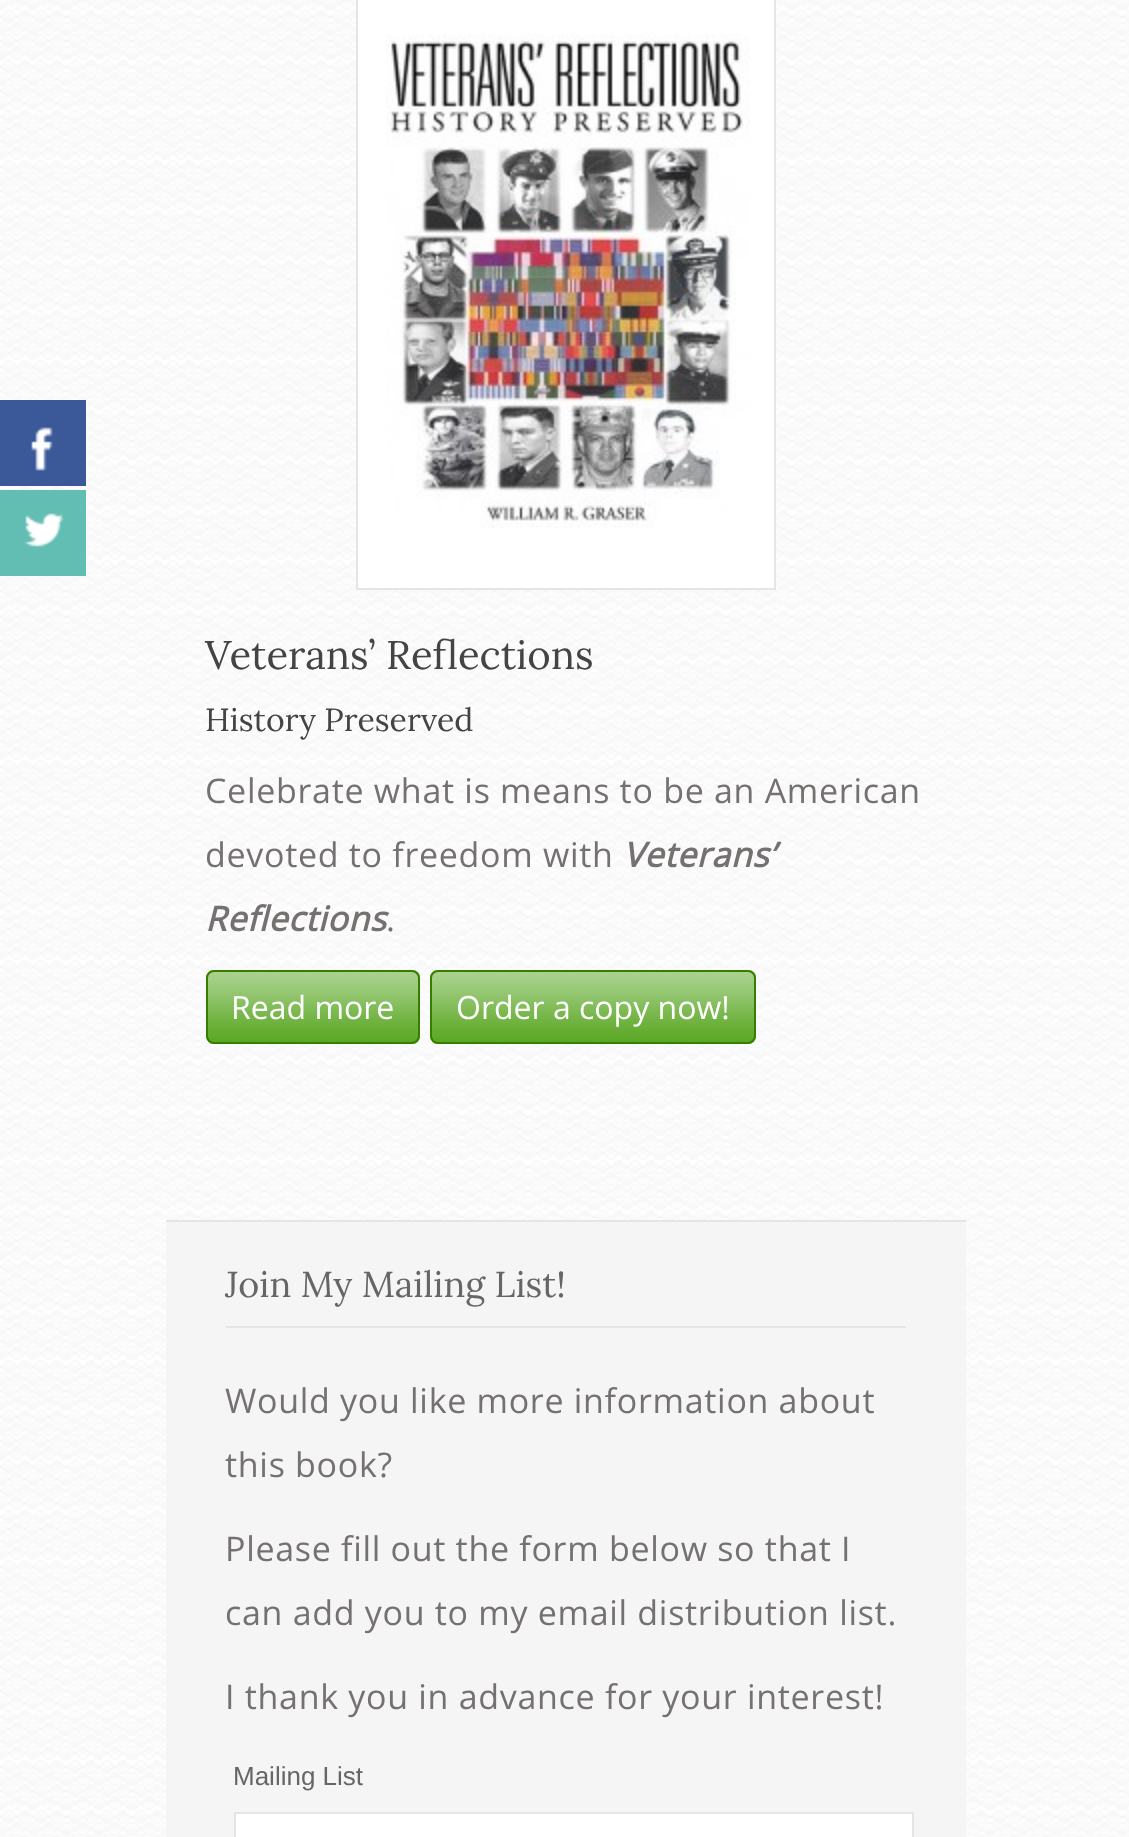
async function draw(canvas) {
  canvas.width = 1129;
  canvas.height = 1837;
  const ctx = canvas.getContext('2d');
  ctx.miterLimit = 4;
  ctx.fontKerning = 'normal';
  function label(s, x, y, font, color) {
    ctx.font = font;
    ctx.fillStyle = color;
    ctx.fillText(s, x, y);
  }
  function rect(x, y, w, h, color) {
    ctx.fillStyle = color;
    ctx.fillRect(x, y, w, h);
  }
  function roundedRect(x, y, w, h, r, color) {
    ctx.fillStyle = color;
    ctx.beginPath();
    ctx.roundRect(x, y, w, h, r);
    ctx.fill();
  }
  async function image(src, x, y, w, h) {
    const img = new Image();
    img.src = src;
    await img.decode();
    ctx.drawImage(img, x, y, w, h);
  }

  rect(0, 0, 1129, 1837, '#fff');
  await image('assets/img1.png', 0, 0, 1129, 1837);
  rect(0, 400, 86, 86, '#3b5998');
  await image('assets/img2.png', 31, 427, 22, 44);
  rect(0, 490, 86, 86, '#62bdb2');
  await image('assets/img3.png', 24, 513, 41, 34);
  ctx.fillStyle = '#fff';
  ctx.beginPath();
  ctx.rect(357, -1, 418, 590);
  ctx.fill();
  ctx.strokeStyle = '#e5e5e5';
  ctx.lineWidth = 2;
  ctx.stroke();
  await image('assets/img4.png', 386, 34, 364, 494);
  label('Veterans’ Reflections', 205, 669, '40px Lora', '#444');
  label('History Preserved', 205, 731, '32px Lora', '#444');
  ctx.letterSpacing = '0.7px';
  label('Celebrate what is means to be an American', 205, 803, '34px Open Sans', '#767171');
  label('devoted to freedom with', 205, 867, '34px Open Sans', '#767171');
  label('Veterans’', 623, 867, 'italic bold 34px Open Sans', '#767171');
  label('Reflections', 205, 931, 'italic bold 34px Open Sans', '#767171');
  label('.', 386, 931, '34px Open Sans', '#767171');
  roundedRect(206, 970, 214, 74, 8, '#5ba825');
  await image('assets/img5.png', 206, 970, 214, 69);
  ctx.beginPath();
  ctx.roundRect(207, 971, 212, 72, 7);
  ctx.strokeStyle = '#377d00';
  ctx.stroke();
  ctx.letterSpacing = '0px';
  label('Read more', 231, 1019, '32px Open Sans', '#fff');
  roundedRect(430, 970, 326, 74, 8, '#5ba825');
  await image('assets/img6.png', 430, 970, 326, 69);
  ctx.beginPath();
  ctx.roundRect(431, 971, 324, 72, 7);
  ctx.stroke();
  label('Order a copy now!', 456, 1019, '32px Open Sans', '#fff');
  rect(166, 1222, 800, 615, '#f5f5f5');
  rect(166, 1220, 800, 2, '#e5e5e5');
  rect(226, 1326, 680, 2, '#e5e5e5');
  label('Join My Mailing List!', 225, 1297, '36px Lora', '#666');
  ctx.letterSpacing = '0.7px';
  label('Would you like more information about', 225, 1413, '34px Open Sans', '#767171');
  label('this book?', 225, 1477, '34px Open Sans', '#767171');
  label('Please fill out the form below so that I', 225, 1561, '34px Open Sans', '#767171');
  label('can add you to my email distribution list.', 225, 1625, '34px Open Sans', '#767171');
  label('I thank you in advance for your interest!', 225, 1709, '34px Open Sans', '#767171');
  ctx.letterSpacing = '0px';
  label('Mailing List', 233, 1785, '26px Liberation Sans', '#666');
  ctx.fillStyle = '#fff';
  ctx.beginPath();
  ctx.rect(235, 1813, 678, 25);
  ctx.fill();
  ctx.strokeStyle = '#e5e5e5';
  ctx.stroke();
}

draw(document.querySelector('canvas'));
